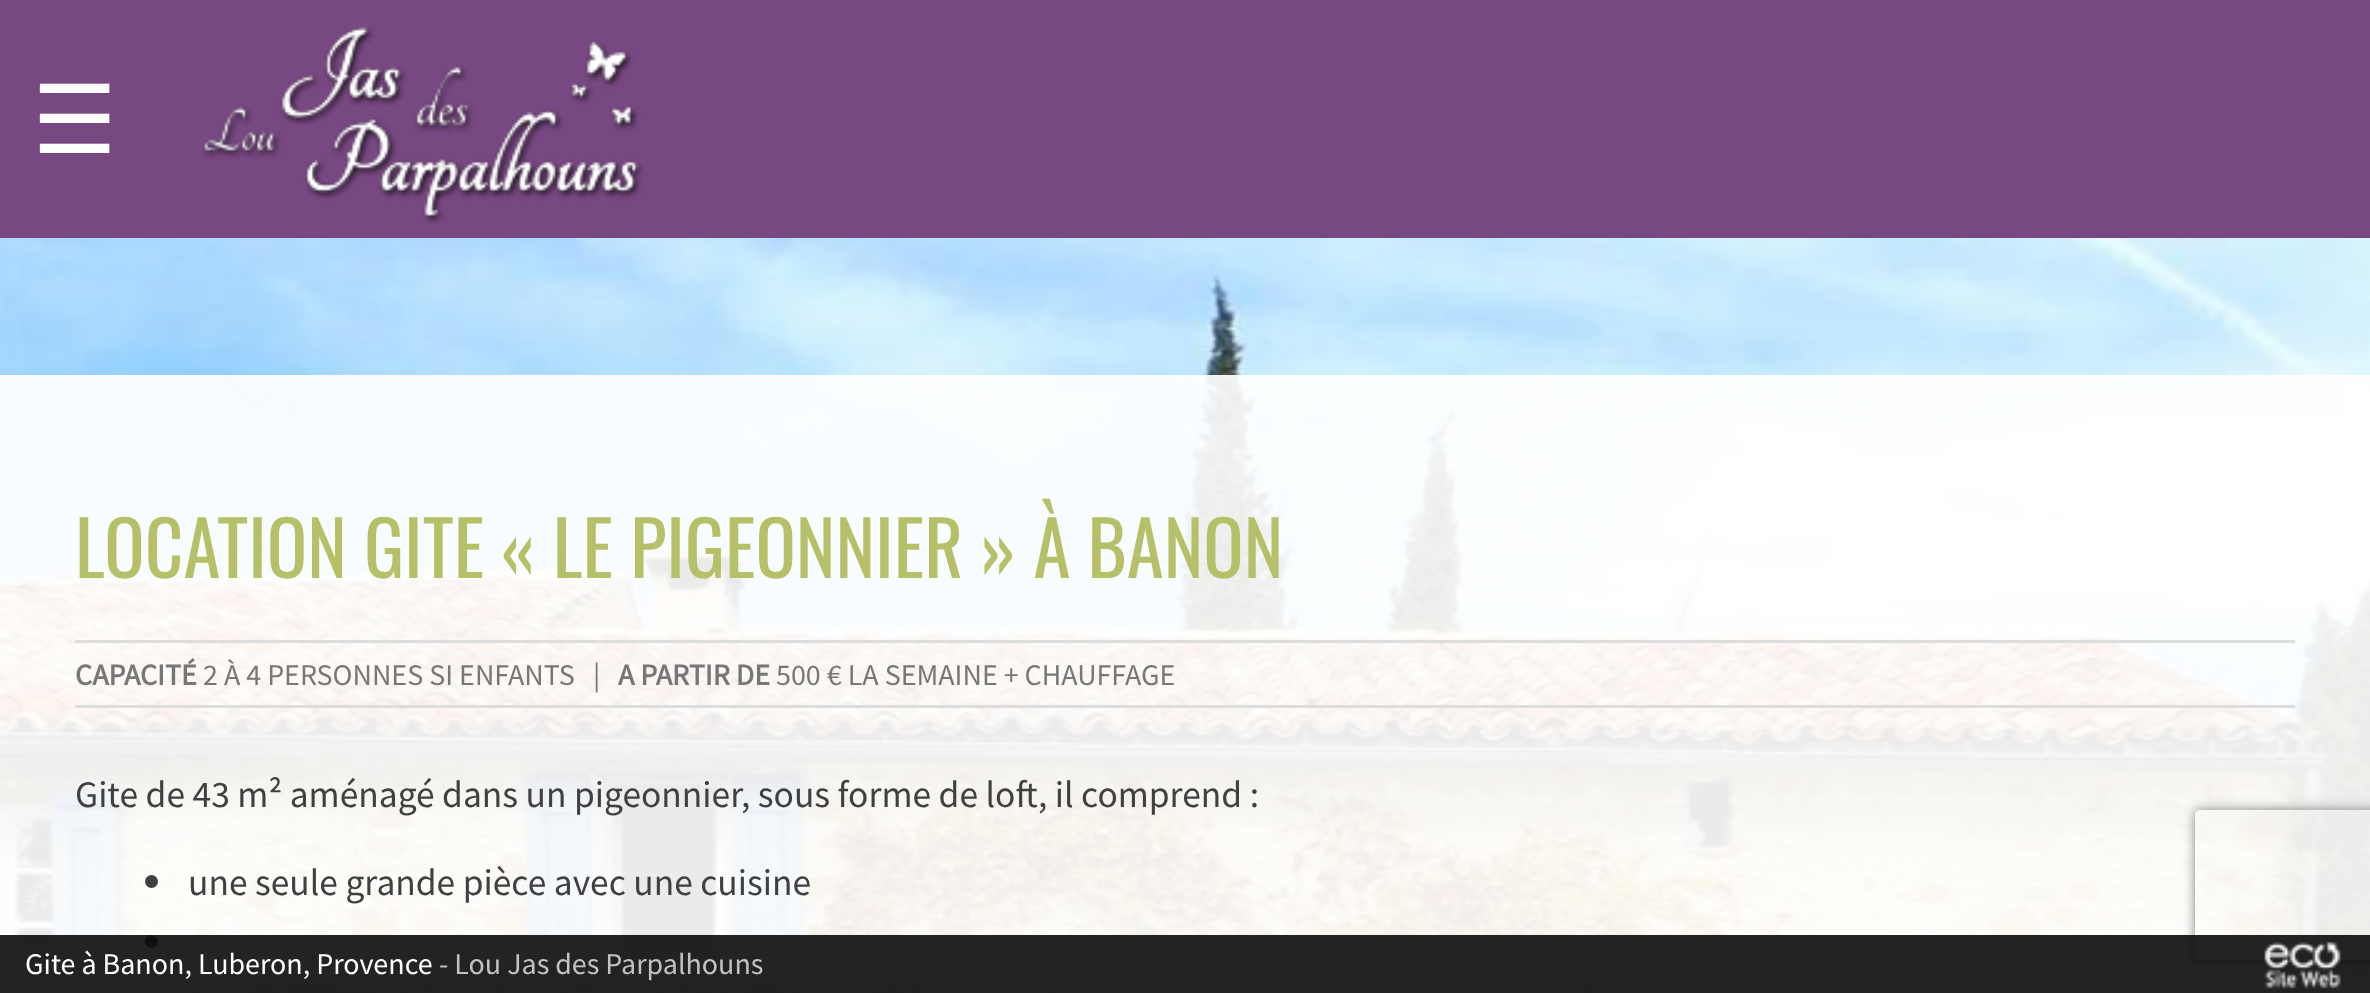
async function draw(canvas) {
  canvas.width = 2370;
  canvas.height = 993;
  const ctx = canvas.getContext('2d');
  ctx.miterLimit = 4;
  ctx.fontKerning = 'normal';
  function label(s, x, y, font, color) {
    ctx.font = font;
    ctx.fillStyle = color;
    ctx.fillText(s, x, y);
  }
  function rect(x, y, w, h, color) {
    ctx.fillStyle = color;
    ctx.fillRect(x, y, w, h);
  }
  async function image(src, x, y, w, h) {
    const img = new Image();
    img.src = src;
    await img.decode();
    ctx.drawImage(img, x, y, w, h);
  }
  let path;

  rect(0, 0, 2370, 993, '#fff');
  await image('assets/img1.png', 0, 238, 2370, 755);
  rect(0, 0, 2370, 238, '#774881');
  label('☰', 32, 153, '95px DejaVu Sans', '#fff');
  await image('assets/img2.png', 202, 26, 441, 198);
  rect(0, 375, 2370, 618, '#ffffffeb');
  label('LOCATION GITE « LE PIGEONNIER » À BANON', 75, 578, '75px Oswald', '#b6c069');
  rect(75, 640, 2220, 3, '#ddd');
  rect(75, 705, 2220, 3, '#ddd');
  label('CAPACITÉ', 75, 685, 'bold 30px Source Sans Pro', '#777');
  label('2 À 4 PERSONNES SI ENFANTS', 203, 685, '30px Source Sans Pro', '#777');
  label('|', 593, 685, '30px Source Sans Pro', '#777');
  label('A PARTIR DE', 618, 685, 'bold 30px Source Sans Pro', '#777');
  label('500 € LA SEMAINE + CHAUFFAGE', 776, 685, '30px Source Sans Pro', '#777');
  label('Gite de 43 m² aménagé dans un pigeonnier, sous forme de loft, il comprend :', 75, 807, '37.5px Source Sans Pro', '#404040');
  ctx.beginPath();
  ctx.arc(151.5, 881.5, 6.5, 0, 2 * Math.PI);
  ctx.fill();
  label('une seule grande pièce avec une cuisine', 188, 895, '37.5px Source Sans Pro', '#404040');
  ctx.beginPath();
  ctx.arc(151.5, 941.5, 6.5, 0, 2 * Math.PI);
  ctx.fill();
  ctx.save();
  path = new Path2D('M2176 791H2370V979H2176ZM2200 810H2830C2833 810 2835 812 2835 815V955C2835 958 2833 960 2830 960H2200C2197 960 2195 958 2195 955V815C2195 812 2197 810 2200 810Z');
  ctx.clip(path, 'evenodd');
  ctx.fillStyle = '#808080';
  ctx.filter = 'blur(6px)';
  ctx.beginPath();
  ctx.roundRect(2195, 810, 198, 150, 5);
  ctx.fill();
  ctx.filter = 'none';
  ctx.restore();
  rect(0, 935, 2370, 58, '#0b0b0be6');
  label('Gite à Banon, Luberon, Provence', 25, 974, '30px Source Sans Pro', '#fff');
  label('- Lou Jas des Parpalhouns', 439, 974, '30px Source Sans Pro', '#c2c2c2');
  await image('assets/img3.png', 2264, 941, 77, 48);
}

draw(document.querySelector('canvas'));
